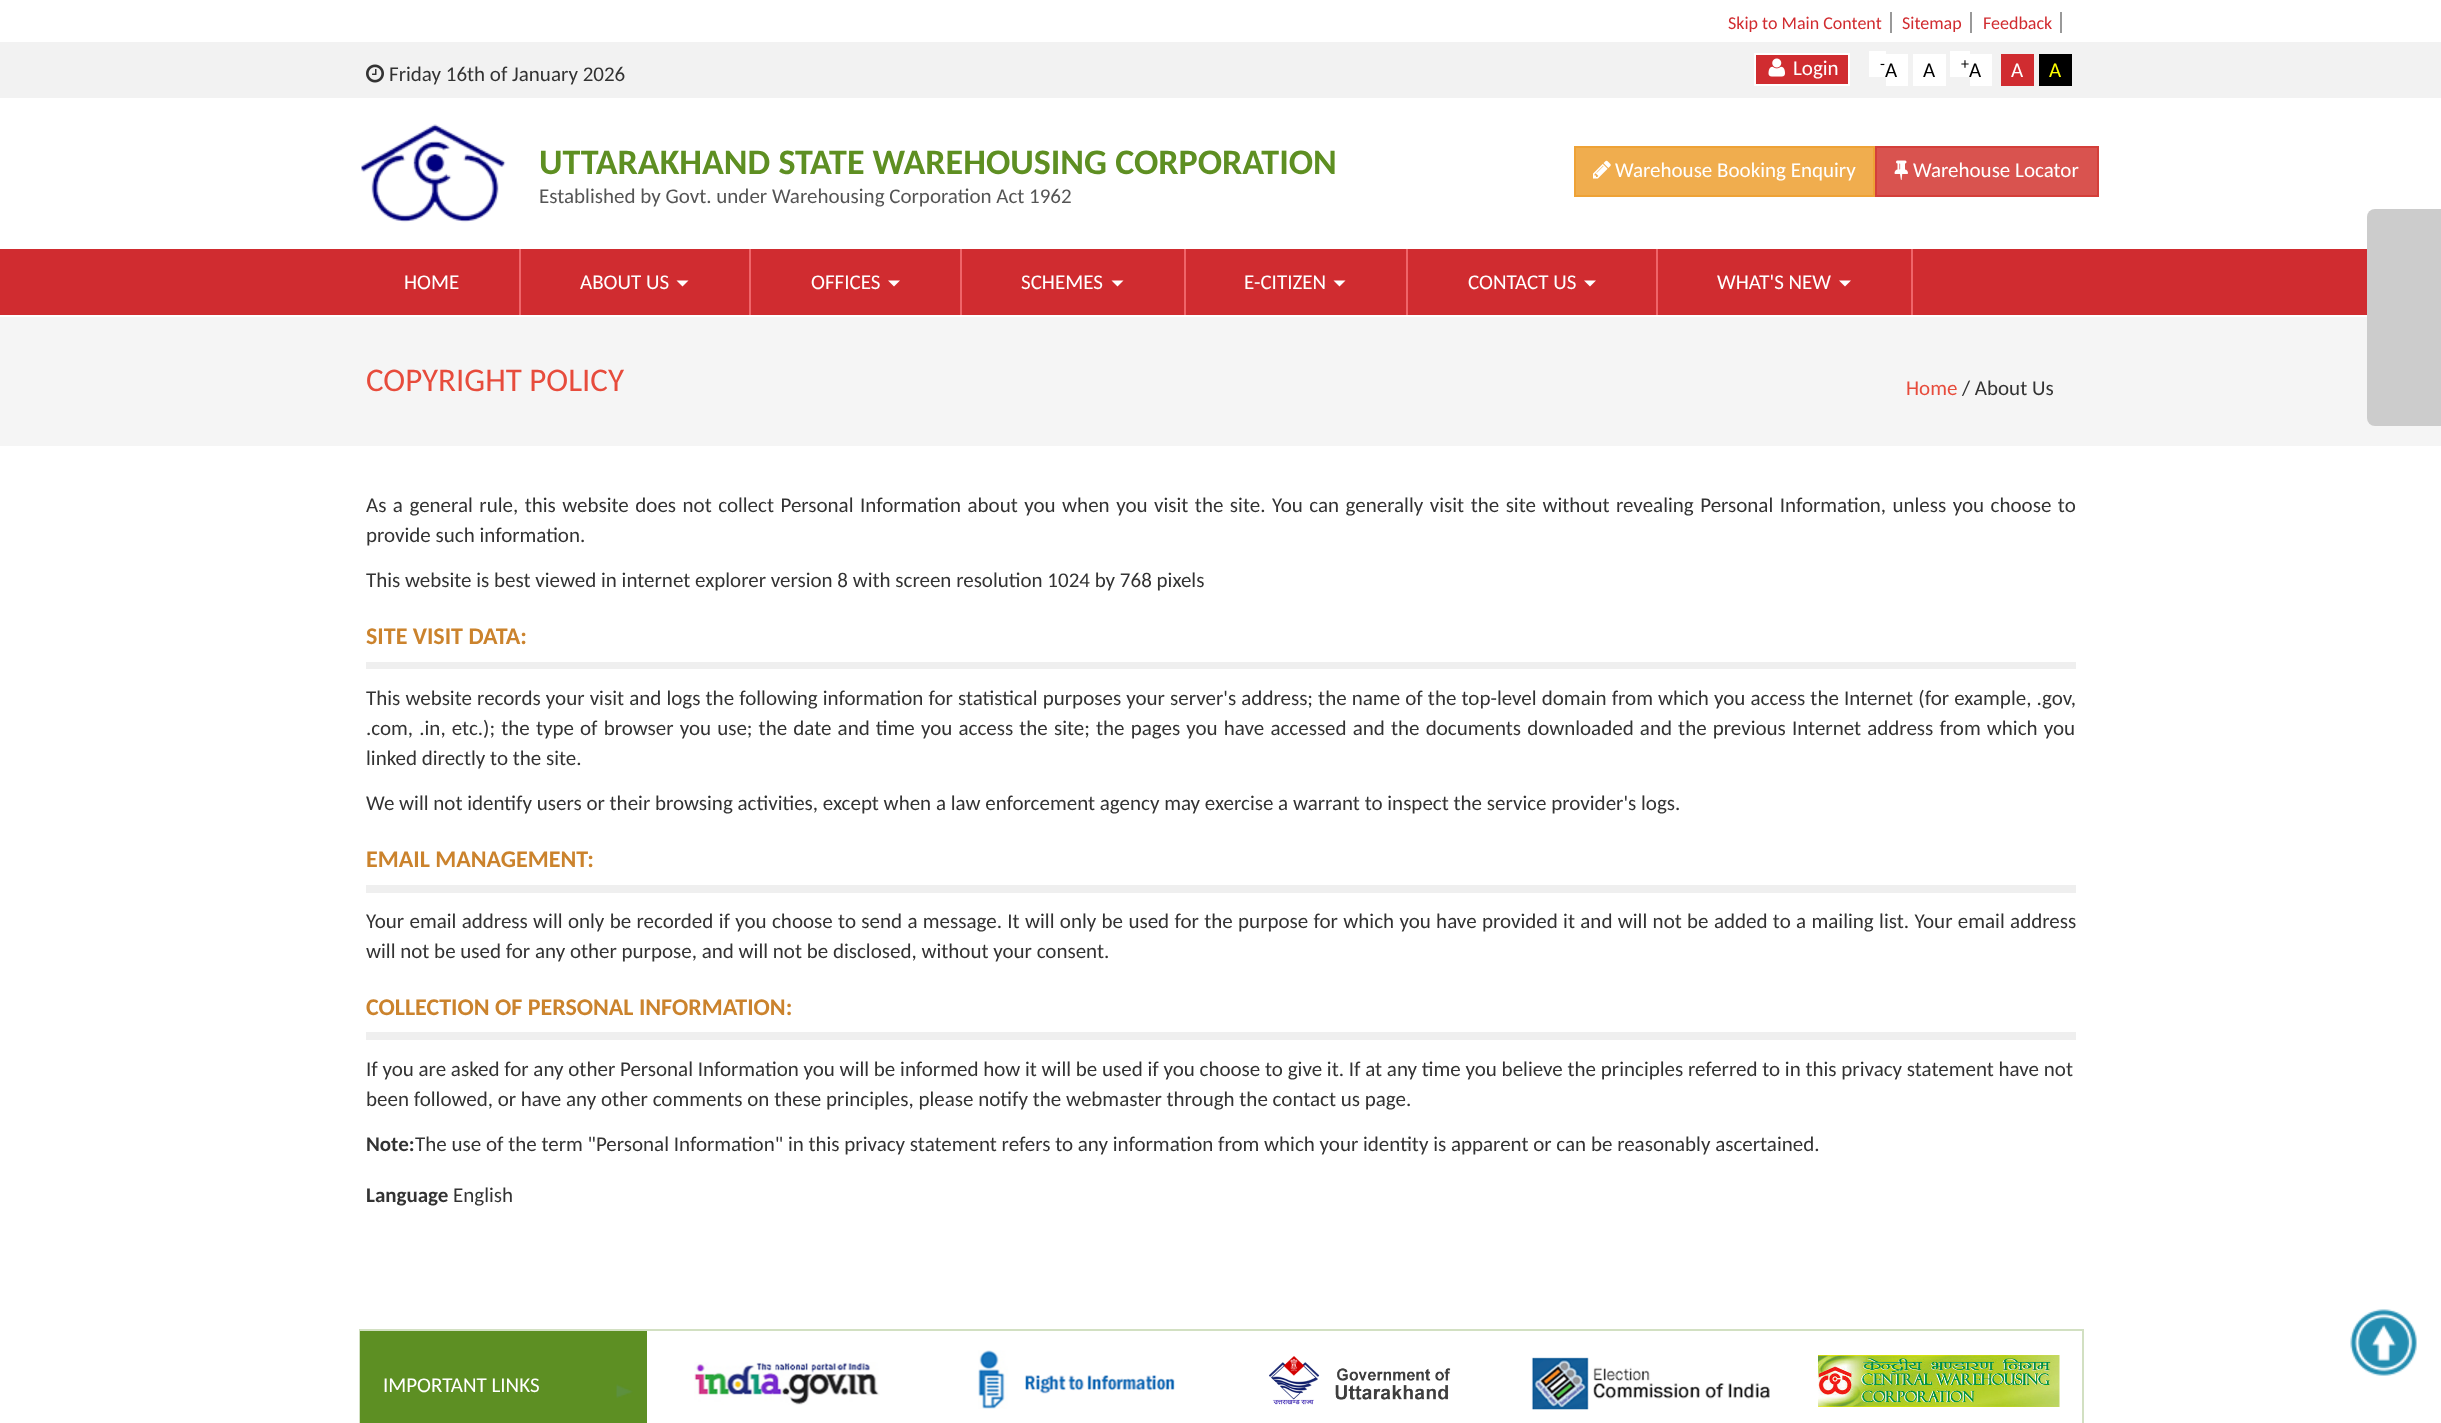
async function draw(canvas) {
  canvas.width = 2441;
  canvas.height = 1423;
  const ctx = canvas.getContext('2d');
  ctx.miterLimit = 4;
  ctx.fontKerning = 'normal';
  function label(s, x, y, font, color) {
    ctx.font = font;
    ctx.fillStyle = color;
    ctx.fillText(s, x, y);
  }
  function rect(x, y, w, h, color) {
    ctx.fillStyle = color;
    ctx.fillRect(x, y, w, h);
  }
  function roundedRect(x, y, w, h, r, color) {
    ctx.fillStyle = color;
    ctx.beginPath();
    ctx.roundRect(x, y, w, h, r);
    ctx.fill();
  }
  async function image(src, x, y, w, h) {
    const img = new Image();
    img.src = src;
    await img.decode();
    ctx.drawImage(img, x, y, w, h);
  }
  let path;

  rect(0, 0, 2441, 1423, '#fff');
  rect(1890, 12, 2, 21, '#999');
  label('Skip to Main Content', 1728, 29, '18px Carlito', '#d12c30');
  rect(1970, 12, 2, 21, '#999');
  label('Sitemap', 1902, 29, '18px Carlito', '#d12c30');
  rect(2060, 12, 2, 21, '#999');
  label('Feedback', 1983, 29, '18px Carlito', '#d12c30');
  rect(0, 42, 2441, 56, '#f2f2f2');
  await image('assets/img1.png', 366, 64, 18, 19);
  label('Friday 16th of January 2026', 389, 81, '21px Carlito', '#333');
  ctx.fillStyle = '#d02c30';
  ctx.beginPath();
  ctx.rect(1755, 54, 94, 31);
  ctx.fill();
  ctx.strokeStyle = '#fff';
  ctx.lineWidth = 2;
  ctx.stroke();
  await image('assets/img2.png', 1768, 58, 17, 19);
  label('Login', 1793, 75, '21px Carlito', '#fff');
  rect(1869, 51, 17, 26, '#fff');
  label('-', 1880, 69, '16px Carlito', '#000');
  rect(1886, 54, 22, 32, '#fff');
  label('A', 1885, 77, '21px Carlito', '#000');
  rect(1913, 54, 33, 32, '#fff');
  label('A', 1923, 77, '21px Carlito', '#000');
  rect(1950, 51, 20, 26, '#fff');
  rect(1970, 54, 22, 32, '#fff');
  label('A', 1969, 77, '21px Carlito', '#000');
  label('+', 1961, 69, '16px Carlito', '#000');
  rect(2001, 54, 33, 32, '#d02c30');
  label('A', 2011, 77, '21px Carlito', '#fff');
  rect(2039, 54, 33, 32, '#000');
  label('A', 2049, 77, '21px Carlito', '#ff0');
  await image('assets/img3.png', 361, 124, 145, 99);
  label('UTTARAKHAND STATE WAREHOUSING CORPORATION', 539, 174, 'bold 36px Carlito', '#5e8f22');
  label('Established by Govt. under Warehousing Corporation Act 1962', 539, 203, '21px Carlito', '#555');
  ctx.fillStyle = '#f0ad4e';
  ctx.beginPath();
  ctx.rect(1575, 147, 299, 49);
  ctx.fill();
  ctx.strokeStyle = '#eea236';
  ctx.stroke();
  await image('assets/img4.png', 1593, 160, 18, 19);
  label('Warehouse Booking Enquiry', 1615, 177, '21px Carlito', '#fff');
  ctx.fillStyle = '#d9534f';
  ctx.beginPath();
  ctx.rect(1876, 147, 222, 49);
  ctx.fill();
  ctx.strokeStyle = '#d43f3a';
  ctx.stroke();
  await image('assets/img5.png', 1894, 160, 14, 20);
  label('Warehouse Locator', 1913, 177, '21px Carlito', '#fff');
  rect(0, 249, 2367, 66, '#d02c30');
  rect(519, 249, 2, 66, '#ef6569');
  label('HOME', 404, 289, '21px Carlito', '#fff');
  rect(749, 249, 2, 66, '#ef6569');
  label('ABOUT US', 580, 289, '21px Carlito', '#fff');
  path = new Path2D('M676.5 280.5H688.5L682.5 286.5Z');
  ctx.fill(path);
  rect(960, 249, 2, 66, '#ef6569');
  label('OFFICES', 811, 289, '21px Carlito', '#fff');
  path = new Path2D('M888 280.5H900L894 286.5Z');
  ctx.fill(path);
  rect(1184, 249, 2, 66, '#ef6569');
  label('SCHEMES', 1021, 289, '21px Carlito', '#fff');
  path = new Path2D('M1111.5 280.5H1123.5L1117.5 286.5Z');
  ctx.fill(path);
  rect(1406, 249, 2, 66, '#ef6569');
  label('E-CITIZEN', 1244, 289, '21px Carlito', '#fff');
  path = new Path2D('M1333.5 280.5H1345.5L1339.5 286.5Z');
  ctx.fill(path);
  rect(1656, 249, 2, 66, '#ef6569');
  label('CONTACT US', 1468, 289, '21px Carlito', '#fff');
  path = new Path2D('M1584 280.5H1596L1590 286.5Z');
  ctx.fill(path);
  rect(1911, 249, 2, 66, '#ef6569');
  label('WHAT\'S NEW', 1717, 289, '21px Carlito', '#fff');
  path = new Path2D('M1839 280.5H1851L1845 286.5Z');
  ctx.fill(path);
  rect(0, 317, 2441, 129, '#f5f5f5');
  roundedRect(2367, 209, 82, 217, 8, '#ccc');
  label('COPYRIGHT POLICY', 366, 391, '33px Carlito', '#e74c3c');
  label('Home', 1906, 395, '21px Carlito', '#e74c3c');
  label('/ About Us', 1962, 395, '21px Carlito', '#333');
  ctx.wordSpacing = '1.75px';
  label('As a general rule, this website does not collect Personal Information about you when you visit the site. You can generally visit the site without revealing Personal Information, unless you choose to', 366, 512, '21px Carlito', '#333');
  ctx.wordSpacing = '0px';
  label('provide such information.', 366, 542, '21px Carlito', '#333');
  label('This website is best viewed in internet explorer version 8 with screen resolution 1024 by 768 pixels', 366, 587, '21px Carlito', '#333');
  rect(366, 662, 1710, 7, '#efefef');
  label('SITE VISIT DATA:', 366, 644, 'bold 24px Carlito', '#cb832d');
  ctx.wordSpacing = '0.4px';
  label('This website records your visit and logs the following information for statistical purposes your server\'s address; the name of the top-level domain from which you access the Internet (for example, .gov,', 366, 705, '21px Carlito', '#333');
  ctx.wordSpacing = '1.4px';
  label('.com, .in, etc.); the type of browser you use; the date and time you access the site; the pages you have accessed and the documents downloaded and the previous Internet address from which you', 366, 735, '21px Carlito', '#333');
  ctx.wordSpacing = '0px';
  label('linked directly to the site.', 366, 765, '21px Carlito', '#333');
  label('We will not identify users or their browsing activities, except when a law enforcement agency may exercise a warrant to inspect the service provider\'s logs.', 366, 810, '21px Carlito', '#333');
  rect(366, 885, 1710, 8, '#efefef');
  label('EMAIL MANAGEMENT:', 366, 867, 'bold 24px Carlito', '#cb832d');
  ctx.wordSpacing = '0.6px';
  label('Your email address will only be recorded if you choose to send a message. It will only be used for the purpose for which you have provided it and will not be added to a mailing list. Your email address', 366, 928, '21px Carlito', '#333');
  ctx.wordSpacing = '0px';
  label('will not be used for any other purpose, and will not be disclosed, without your consent.', 366, 958, '21px Carlito', '#333');
  rect(366, 1032, 1710, 8, '#efefef');
  label('COLLECTION OF PERSONAL INFORMATION:', 366, 1015, 'bold 24px Carlito', '#cb832d');
  label('If you are asked for any other Personal Information you will be informed how it will be used if you choose to give it. If at any time you believe the principles referred to in this privacy statement have not', 366, 1076, '21px Carlito', '#333');
  label('been followed, or have any other comments on these principles, please notify the webmaster through the contact us page.', 366, 1106, '21px Carlito', '#333');
  label('Note:', 366, 1151, 'bold 21px Carlito', '#333');
  label('The use of the term "Personal Information" in this privacy statement refers to any information from which your identity is apparent or can be reasonably ascertained.', 415, 1151, '21px Carlito', '#333');
  label('Language', 366, 1202, 'bold 21px Carlito', '#333');
  label('English', 453, 1202, '21px Carlito', '#333');
  await image('assets/img6.png', 2350, 1309, 67, 67);
  ctx.strokeStyle = '#d2e0c2';
  ctx.strokeRect(360, 1330, 1723, 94);
  rect(360, 1331, 287, 92, '#5d8f23');
  label('IMPORTANT LINKS', 383, 1392, '21px Carlito', '#fff');
  await image('assets/img7.png', 616, 1384, 17, 14);
  await image('assets/img8.png', 694, 1362, 186, 43);
  await image('assets/img9.png', 978, 1350, 197, 59);
  await image('assets/img10.png', 1269, 1356, 182, 49);
  await image('assets/img11.png', 1531, 1357, 239, 53);
  await image('assets/img12.png', 1818, 1355, 242, 52);
}

draw(document.querySelector('canvas'));
